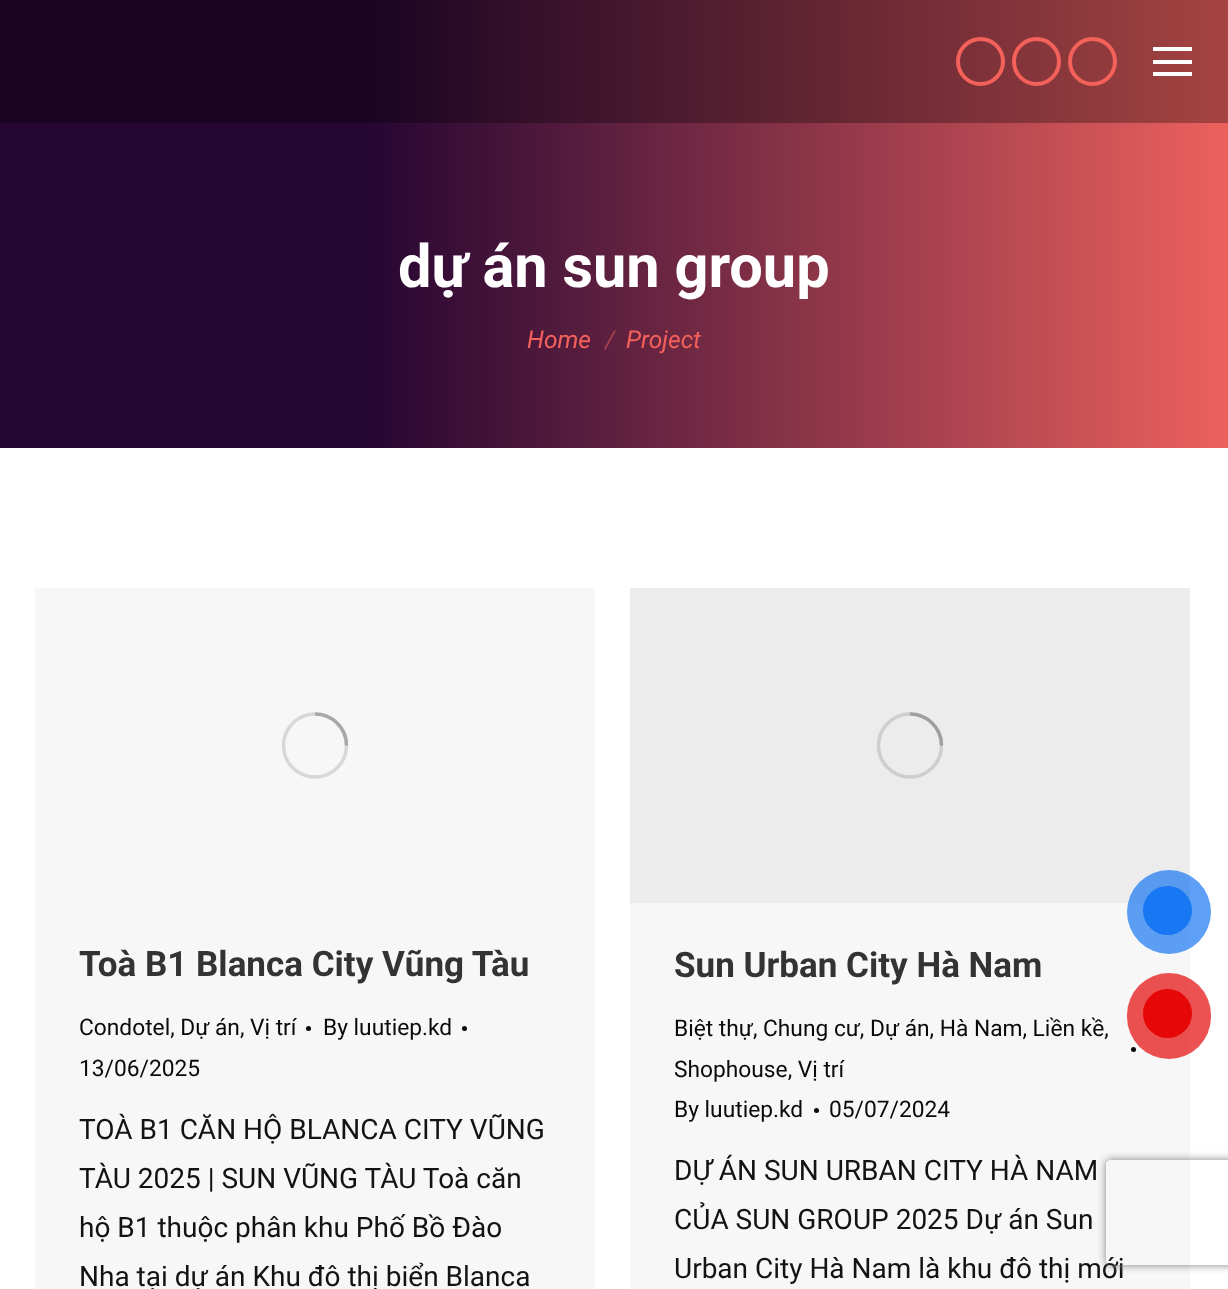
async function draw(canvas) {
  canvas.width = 1228;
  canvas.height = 1289;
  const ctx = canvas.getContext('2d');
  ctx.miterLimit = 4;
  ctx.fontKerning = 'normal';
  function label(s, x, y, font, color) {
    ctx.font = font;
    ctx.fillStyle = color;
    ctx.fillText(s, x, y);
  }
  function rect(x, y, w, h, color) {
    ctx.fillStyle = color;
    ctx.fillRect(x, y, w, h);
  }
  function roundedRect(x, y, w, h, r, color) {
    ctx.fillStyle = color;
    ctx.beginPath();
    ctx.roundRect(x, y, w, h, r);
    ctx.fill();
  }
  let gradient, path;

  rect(0, 0, 1228, 1289, '#fff');
  gradient = ctx.createLinearGradient(0, 224, 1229, 224);
  gradient.addColorStop(0.3, '#1b0424');
  gradient.addColorStop(1, '#a54441');
  ctx.fillStyle = gradient;
  ctx.fillRect(0, 0, 1228, 123);
  ctx.beginPath();
  ctx.arc(980.5, 61.5, 22.5, 0, 2 * Math.PI);
  ctx.strokeStyle = '#f3615a';
  ctx.lineWidth = 4;
  ctx.stroke();
  ctx.beginPath();
  ctx.arc(1036.5, 61.5, 22.5, 0, 2 * Math.PI);
  ctx.stroke();
  ctx.beginPath();
  ctx.arc(1092.5, 61.5, 22.5, 0, 2 * Math.PI);
  ctx.stroke();
  rect(1153, 47, 39, 4, '#fff');
  rect(1153, 60, 39, 4, '#fff');
  rect(1153, 72, 39, 4, '#fff');
  gradient = ctx.createLinearGradient(0, 224, 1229, 224);
  gradient.addColorStop(0.3, '#260633');
  gradient.addColorStop(1, '#ec615d');
  ctx.fillStyle = gradient;
  ctx.fillRect(0, 123, 1228, 325);
  label('dự án sun group', 398, 287, 'bold 59.5px Roboto', '#fff');
  label('Home', 527, 348, 'italic 24.5px Roboto', '#f3615a');
  label('/', 605, 348, 'italic 24.5px Roboto', '#a8404d');
  label('Project', 626, 348, 'italic 24.5px Roboto', '#f3615a');
  rect(35, 588, 560, 701, '#f7f7f7');
  ctx.save();
  ctx.beginPath();
  ctx.rect(282, 712, 66, 67);
  ctx.clip();
  ctx.beginPath();
  ctx.arc(315, 745.5, 31.5, 0, 2 * Math.PI);
  ctx.strokeStyle = '#d8d8d8';
  ctx.lineWidth = 3.5;
  ctx.stroke();
  ctx.restore();
  path = new Path2D('M346.5 745.5C346.5 728 332.5 714 315 714');
  ctx.strokeStyle = '#14131340';
  ctx.lineWidth = 3.5;
  ctx.stroke(path);
  label('Toà B1 Blanca City Vũng Tàu', 79, 976, 'bold 35px Roboto', '#333');
  label('Condotel, Dự án, Vị trí', 79, 1035, '22.75px Roboto', '#0a0a0a');
  ctx.beginPath();
  ctx.arc(308.5, 1028.5, 2.5, 0, 2 * Math.PI);
  ctx.fill();
  label('By luutiep.kd', 323, 1035, '22.75px Roboto', '#0a0a0a');
  ctx.beginPath();
  ctx.arc(464.5, 1028.5, 2.5, 0, 2 * Math.PI);
  ctx.fill();
  label('13/06/2025', 79, 1076, '22.75px Roboto', '#0a0a0a');
  label('TOÀ B1 CĂN HỘ BLANCA CITY VŨNG', 79, 1139, '28px Roboto', '#141313');
  label('TÀU 2025 | SUN VŨNG TÀU Toà căn', 79, 1188, '28px Roboto', '#141313');
  label('hộ B1 thuộc phân khu Phố Bồ Đào', 79, 1237, '28px Roboto', '#141313');
  label('Nha tại dự án Khu đô thị biển Blanca', 79, 1286, '28px Roboto', '#141313');
  rect(630, 903, 560, 386, '#f7f7f7');
  rect(630, 588, 560, 315, '#ececec');
  ctx.save();
  ctx.beginPath();
  ctx.rect(877, 712, 66, 67);
  ctx.clip();
  ctx.beginPath();
  ctx.arc(910, 745.5, 31.5, 0, 2 * Math.PI);
  ctx.strokeStyle = '#cecece';
  ctx.stroke();
  ctx.restore();
  path = new Path2D('M941.5 745.5C941.5 728 927.5 714 910 714');
  ctx.stroke(path);
  label('Sun Urban City Hà Nam', 674, 977, 'bold 35px Roboto', '#333');
  label('Biệt thự, Chung cư, Dự án, Hà Nam, Liền kề,', 674, 1036, '22.75px Roboto', '#0a0a0a');
  ctx.beginPath();
  ctx.arc(1133.5, 1049.5, 2.5, 0, 2 * Math.PI);
  ctx.fill();
  label('Shophouse, Vị trí', 674, 1077, '22.75px Roboto', '#0a0a0a');
  label('By luutiep.kd', 674, 1117, '22.75px Roboto', '#0a0a0a');
  ctx.beginPath();
  ctx.arc(816.5, 1110.5, 2.5, 0, 2 * Math.PI);
  ctx.fill();
  label('05/07/2024', 829, 1117, '22.75px Roboto', '#0a0a0a');
  label('DỰ ÁN SUN URBAN CITY HÀ NAM', 674, 1180, '28px Roboto', '#141313');
  label('CỦA SUN GROUP 2025 Dự án Sun', 674, 1229, '28px Roboto', '#141313');
  label('Urban City Hà Nam là khu đô thị mới', 674, 1278, '28px Roboto', '#141313');
  ctx.fillStyle = '#1877f2b3';
  ctx.beginPath();
  ctx.arc(1169, 912, 42, 0, 2 * Math.PI);
  ctx.fill();
  ctx.fillStyle = '#1877f2';
  ctx.beginPath();
  ctx.arc(1167.5, 910.5, 24.5, 0, 2 * Math.PI);
  ctx.fill();
  roundedRect(1127, 973, 84, 86, 42, '#e60808b3');
  ctx.fillStyle = '#e60808';
  ctx.beginPath();
  ctx.arc(1167.5, 1013.5, 24.5, 0, 2 * Math.PI);
  ctx.fill();
  ctx.save();
  path = new Path2D('M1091 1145H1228V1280H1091ZM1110 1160H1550C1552 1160 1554 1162 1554 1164V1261C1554 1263 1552 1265 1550 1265H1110C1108 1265 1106 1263 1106 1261V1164C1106 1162 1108 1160 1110 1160Z');
  ctx.clip(path, 'evenodd');
  ctx.fillStyle = '#808080';
  ctx.filter = 'blur(4.5px)';
  ctx.beginPath();
  ctx.roundRect(1106, 1160, 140, 105, 4);
  ctx.fill();
  ctx.filter = 'none';
  ctx.restore();
}

draw(document.querySelector('canvas'));
